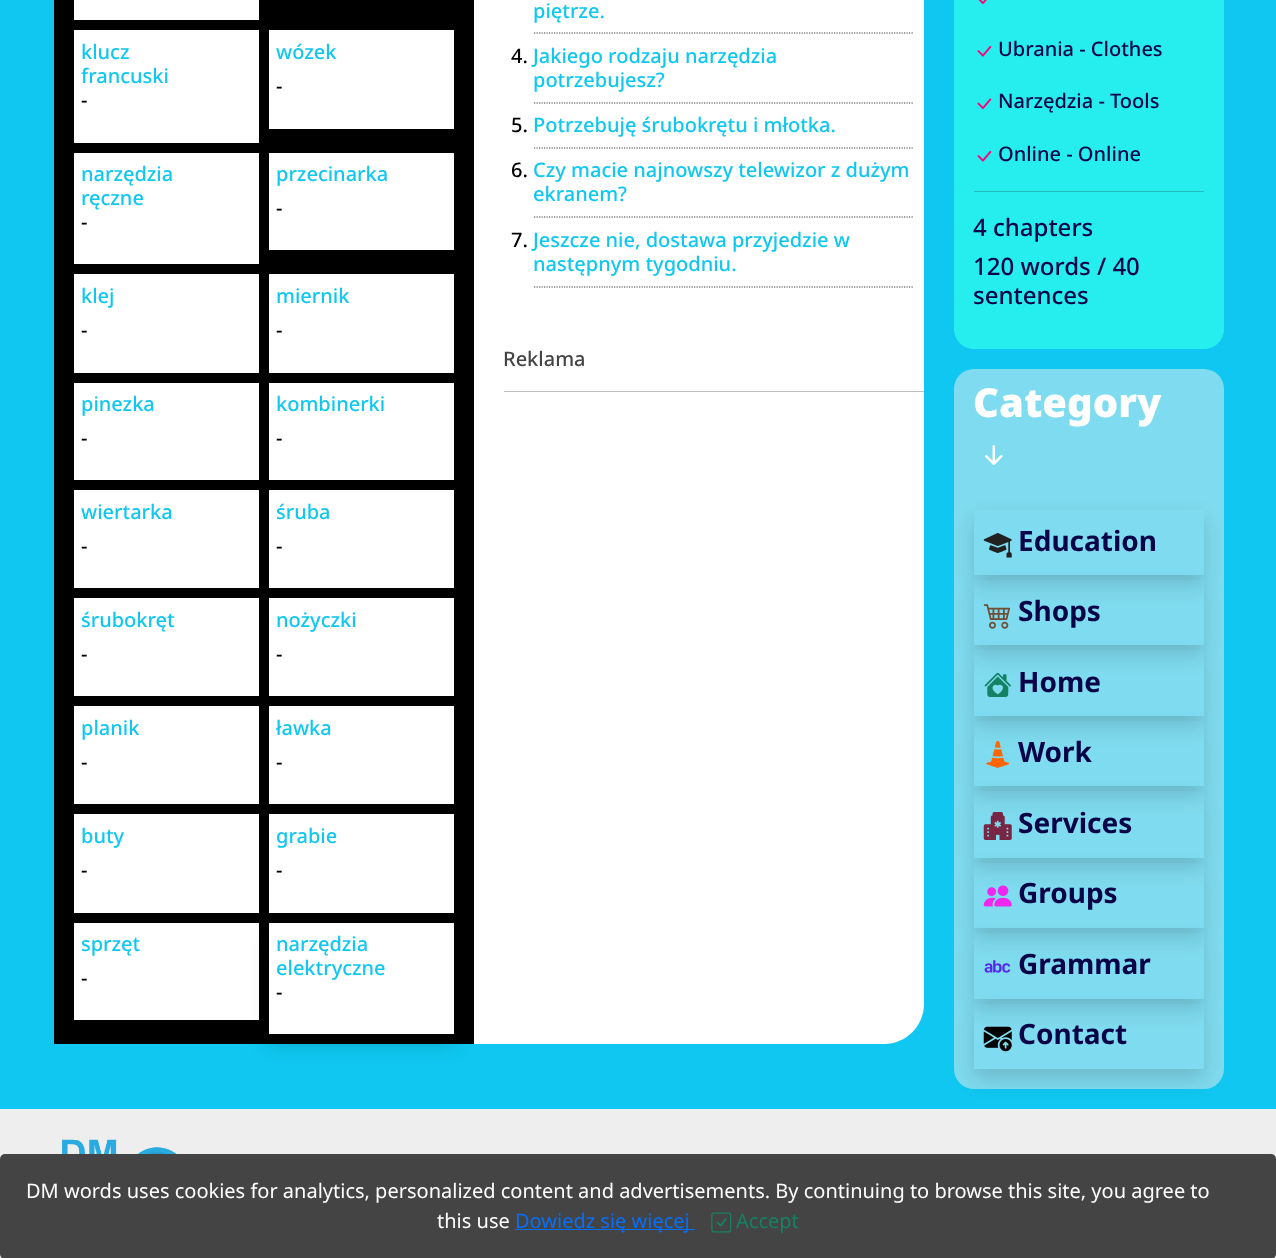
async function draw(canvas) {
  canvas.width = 1276;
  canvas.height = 1258;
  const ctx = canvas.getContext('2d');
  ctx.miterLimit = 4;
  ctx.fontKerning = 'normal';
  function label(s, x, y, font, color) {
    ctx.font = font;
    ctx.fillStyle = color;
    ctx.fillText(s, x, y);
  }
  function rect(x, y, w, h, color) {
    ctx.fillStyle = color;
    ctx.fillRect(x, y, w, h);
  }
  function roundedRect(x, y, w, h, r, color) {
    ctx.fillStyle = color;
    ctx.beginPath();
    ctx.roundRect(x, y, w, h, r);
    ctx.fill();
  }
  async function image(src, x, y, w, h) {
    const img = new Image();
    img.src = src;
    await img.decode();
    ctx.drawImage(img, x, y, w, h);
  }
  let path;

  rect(0, 0, 1276, 1258, '#0fc7f0');
  ctx.fillStyle = '#fff';
  path = new Path2D('M54-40H884C906-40 924-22 924 0V1004C924 1026 906 1044 884 1044H54Z');
  ctx.fill(path);
  rect(54, 0, 420, 1044, '#000');
  rect(74, 0, 185, 20, '#fff');
  rect(74, 30, 185, 113, '#fff');
  label('klucz', 81, 59, '500 20px Noto Sans', '#0fc7f0');
  label('francuski', 81, 83, '500 20px Noto Sans', '#0fc7f0');
  label('-', 81, 107, '500 20px Noto Sans', '#000');
  rect(269, 30, 185, 99, '#fff');
  label('wózek', 276, 59, '500 20px Noto Sans', '#0fc7f0');
  label('-', 276, 93, '500 20px Noto Sans', '#000');
  rect(74, 153, 185, 111, '#fff');
  label('narzędzia', 81, 181, '500 20px Noto Sans', '#0fc7f0');
  label('ręczne', 81, 205, '500 20px Noto Sans', '#0fc7f0');
  label('-', 81, 229, '500 20px Noto Sans', '#000');
  rect(269, 153, 185, 97, '#fff');
  label('przecinarka', 276, 181, '500 20px Noto Sans', '#0fc7f0');
  label('-', 276, 215, '500 20px Noto Sans', '#000');
  rect(74, 274, 185, 99, '#fff');
  label('klej', 81, 303, '500 20px Noto Sans', '#0fc7f0');
  label('-', 81, 337, '500 20px Noto Sans', '#000');
  rect(269, 274, 185, 99, '#fff');
  label('miernik', 276, 303, '500 20px Noto Sans', '#0fc7f0');
  label('-', 276, 337, '500 20px Noto Sans', '#000');
  rect(74, 383, 185, 97, '#fff');
  label('pinezka', 81, 411, '500 20px Noto Sans', '#0fc7f0');
  label('-', 81, 445, '500 20px Noto Sans', '#000');
  rect(269, 383, 185, 97, '#fff');
  label('kombinerki', 276, 411, '500 20px Noto Sans', '#0fc7f0');
  label('-', 276, 445, '500 20px Noto Sans', '#000');
  rect(74, 490, 185, 98, '#fff');
  label('wiertarka', 81, 519, '500 20px Noto Sans', '#0fc7f0');
  label('-', 81, 553, '500 20px Noto Sans', '#000');
  rect(269, 490, 185, 98, '#fff');
  label('śruba', 276, 519, '500 20px Noto Sans', '#0fc7f0');
  label('-', 276, 553, '500 20px Noto Sans', '#000');
  rect(74, 598, 185, 98, '#fff');
  label('śrubokręt', 81, 627, '500 20px Noto Sans', '#0fc7f0');
  label('-', 81, 661, '500 20px Noto Sans', '#000');
  rect(269, 598, 185, 98, '#fff');
  label('nożyczki', 276, 627, '500 20px Noto Sans', '#0fc7f0');
  label('-', 276, 661, '500 20px Noto Sans', '#000');
  rect(74, 706, 185, 98, '#fff');
  label('planik', 81, 735, '500 20px Noto Sans', '#0fc7f0');
  label('-', 81, 769, '500 20px Noto Sans', '#000');
  rect(269, 706, 185, 98, '#fff');
  label('ławka', 276, 735, '500 20px Noto Sans', '#0fc7f0');
  label('-', 276, 769, '500 20px Noto Sans', '#000');
  rect(74, 814, 185, 99, '#fff');
  label('buty', 81, 843, '500 20px Noto Sans', '#0fc7f0');
  label('-', 81, 877, '500 20px Noto Sans', '#000');
  rect(269, 814, 185, 99, '#fff');
  label('grabie', 276, 843, '500 20px Noto Sans', '#0fc7f0');
  label('-', 276, 877, '500 20px Noto Sans', '#000');
  rect(74, 923, 185, 97, '#fff');
  label('sprzęt', 81, 951, '500 20px Noto Sans', '#0fc7f0');
  label('-', 81, 985, '500 20px Noto Sans', '#000');
  ctx.fillStyle = '#00000026';
  ctx.filter = 'blur(10px)';
  ctx.beginPath();
  ctx.rect(269, 933, 185, 111);
  ctx.fill();
  ctx.filter = 'none';
  rect(269, 923, 185, 111, '#fff');
  label('narzędzia', 276, 951, '500 20px Noto Sans', '#0fc7f0');
  label('elektryczne', 276, 975, '500 20px Noto Sans', '#0fc7f0');
  label('-', 276, 999, '500 20px Noto Sans', '#000');
  path = new Path2D('M534 33H914');
  ctx.strokeStyle = '#444';
  ctx.lineWidth = 1.2;
  ctx.setLineDash([1.25, 1.25]);
  ctx.stroke(path);
  label('piętrze.', 533, 18, '500 20px Noto Sans', '#0fc7f0');
  path = new Path2D('M534 103H914');
  ctx.stroke(path);
  label('4.', 511, 63, '500 20px Noto Sans', '#000');
  label('Jakiego rodzaju narzędzia', 533, 63, '500 20px Noto Sans', '#0fc7f0');
  label('potrzebujesz?', 533, 87, '500 20px Noto Sans', '#0fc7f0');
  path = new Path2D('M534 148H914');
  ctx.stroke(path);
  label('5.', 511, 132, '500 20px Noto Sans', '#000');
  label('Potrzebuję śrubokrętu i młotka.', 533, 132, '500 20px Noto Sans', '#0fc7f0');
  path = new Path2D('M534 217H914');
  ctx.stroke(path);
  label('6.', 511, 177, '500 20px Noto Sans', '#000');
  label('Czy macie najnowszy telewizor z dużym', 533, 177, '500 20px Noto Sans', '#0fc7f0');
  label('ekranem?', 533, 201, '500 20px Noto Sans', '#0fc7f0');
  path = new Path2D('M534 287H914');
  ctx.stroke(path);
  label('7.', 511, 247, '500 20px Noto Sans', '#000');
  label('Jeszcze nie, dostawa przyjedzie w', 533, 247, '500 20px Noto Sans', '#0fc7f0');
  label('następnym tygodniu.', 533, 271, '500 20px Noto Sans', '#0fc7f0');
  label('Reklama', 503, 366, '500 20px Noto Sans', '#444');
  rect(504, 391, 420, 1, '#bfbfbf');
  roundedRect(954, -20, 270, 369, 20, '#26eeee');
  await image('assets/img1.png', 978, 0, 9, 5);
  await image('assets/img2.png', 977, 45, 15, 12);
  label('Ubrania - Clothes', 998, 56, '500 20px Noto Sans', '#090448');
  await image('assets/img3.png', 977, 98, 15, 12);
  label('Narzędzia - Tools', 998, 108, '500 20px Noto Sans', '#090448');
  await image('assets/img2.png', 977, 150, 15, 12);
  label('Online - Online', 998, 161, '500 20px Noto Sans', '#090448');
  rect(974, 191, 230, 1, '#25bcbd');
  label('4 chapters', 973, 236, '500 24px Noto Sans', '#090448');
  label('120 words / 40', 973, 275, '500 24px Noto Sans', '#090448');
  label('sentences', 973, 304, '500 24px Noto Sans', '#090448');
  roundedRect(954, 369, 270, 720, 20, '#7fdbef');
  label('Category', 973, 417, '900 40px Noto Sans', '#fff');
  await image('assets/img4.png', 985, 445, 18, 20);
  ctx.save();
  path = new Path2D('M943 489H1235V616H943ZM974 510H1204V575H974Z');
  ctx.clip(path, 'evenodd');
  ctx.fillStyle = '#00000026';
  ctx.filter = 'blur(10px)';
  ctx.beginPath();
  ctx.rect(974, 520, 230, 65);
  ctx.fill();
  ctx.filter = 'none';
  ctx.restore();
  await image('assets/img5.png', 983, 533, 29, 25);
  label('Education', 1018, 551, 'bold 28px Noto Sans', '#090448');
  ctx.save();
  path = new Path2D('M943 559H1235V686H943ZM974 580H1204V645H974Z');
  ctx.clip(path, 'evenodd');
  ctx.fillStyle = '#00000026';
  ctx.filter = 'blur(10px)';
  ctx.beginPath();
  ctx.rect(974, 590, 230, 65);
  ctx.fill();
  ctx.filter = 'none';
  ctx.restore();
  await image('assets/img6.png', 983, 604, 27, 25);
  label('Shops', 1018, 621, 'bold 28px Noto Sans', '#090448');
  ctx.save();
  path = new Path2D('M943 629H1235V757H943ZM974 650H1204V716H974Z');
  ctx.clip(path, 'evenodd');
  ctx.fillStyle = '#00000026';
  ctx.filter = 'blur(10px)';
  ctx.beginPath();
  ctx.rect(974, 660, 230, 66);
  ctx.fill();
  ctx.filter = 'none';
  ctx.restore();
  await image('assets/img7.png', 984, 672, 27, 25);
  label('Home', 1018, 692, 'bold 28px Noto Sans', '#090448');
  ctx.save();
  path = new Path2D('M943 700H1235V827H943ZM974 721H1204V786H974Z');
  ctx.clip(path, 'evenodd');
  ctx.fillStyle = '#00000026';
  ctx.filter = 'blur(10px)';
  ctx.beginPath();
  ctx.rect(974, 731, 230, 65);
  ctx.fill();
  ctx.filter = 'none';
  ctx.restore();
  await image('assets/img8.png', 986, 741, 24, 27);
  label('Work', 1018, 762, 'bold 28px Noto Sans', '#090448');
  ctx.save();
  path = new Path2D('M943 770H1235V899H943ZM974 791H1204V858H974Z');
  ctx.clip(path, 'evenodd');
  ctx.fillStyle = '#00000026';
  ctx.filter = 'blur(10px)';
  ctx.beginPath();
  ctx.rect(974, 801, 230, 67);
  ctx.fill();
  ctx.filter = 'none';
  ctx.restore();
  await image('assets/img9.png', 983, 812, 29, 28);
  label('Services', 1018, 833, 'bold 28px Noto Sans', '#090448');
  ctx.save();
  path = new Path2D('M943 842H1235V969H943ZM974 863H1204V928H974Z');
  ctx.clip(path, 'evenodd');
  ctx.fillStyle = '#00000026';
  ctx.filter = 'blur(10px)';
  ctx.beginPath();
  ctx.rect(974, 873, 230, 65);
  ctx.fill();
  ctx.filter = 'none';
  ctx.restore();
  await image('assets/img10.png', 983, 885, 29, 22);
  label('Groups', 1018, 903, 'bold 28px Noto Sans', '#090448');
  ctx.save();
  path = new Path2D('M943 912H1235V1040H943ZM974 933H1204V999H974Z');
  ctx.clip(path, 'evenodd');
  ctx.fillStyle = '#00000026';
  ctx.filter = 'blur(10px)';
  ctx.beginPath();
  ctx.rect(974, 943, 230, 66);
  ctx.fill();
  ctx.filter = 'none';
  ctx.restore();
  await image('assets/img11.png', 984, 960, 27, 13);
  label('Grammar', 1018, 974, 'bold 28px Noto Sans', '#090448');
  rect(0, 1109, 1276, 149, '#eee');
  ctx.save();
  path = new Path2D('M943 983H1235V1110H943ZM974 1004H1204V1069H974Z');
  ctx.clip(path, 'evenodd');
  ctx.fillStyle = '#00000026';
  ctx.filter = 'blur(10px)';
  ctx.beginPath();
  ctx.rect(974, 1014, 230, 65);
  ctx.fill();
  ctx.filter = 'none';
  ctx.restore();
  await image('assets/img12.png', 983, 1026, 29, 26);
  label('Contact', 1018, 1044, 'bold 28px Noto Sans', '#090448');
  await image('assets/img13.png', 62, 1139, 115, 15);
  roundedRect(0, 1154, 1276, 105, 5, '#444');
  label('DM words uses cookies for analytics, personalized content and advertisements. By continuing to browse this site, you agree to', 26, 1198, '20px Noto Sans', '#fff');
  label('this use', 437, 1228, '20px Noto Sans', '#fff');
  rect(515, 1229, 180, 1, '#076ef7');
  label('Dowiedz się więcej', 515, 1228, '20px Noto Sans', '#076ef7');
  await image('assets/img14.png', 711, 1212, 21, 21);
  label('Accept', 736, 1228, '20px Noto Sans', '#148163');
}

draw(document.querySelector('canvas'));
